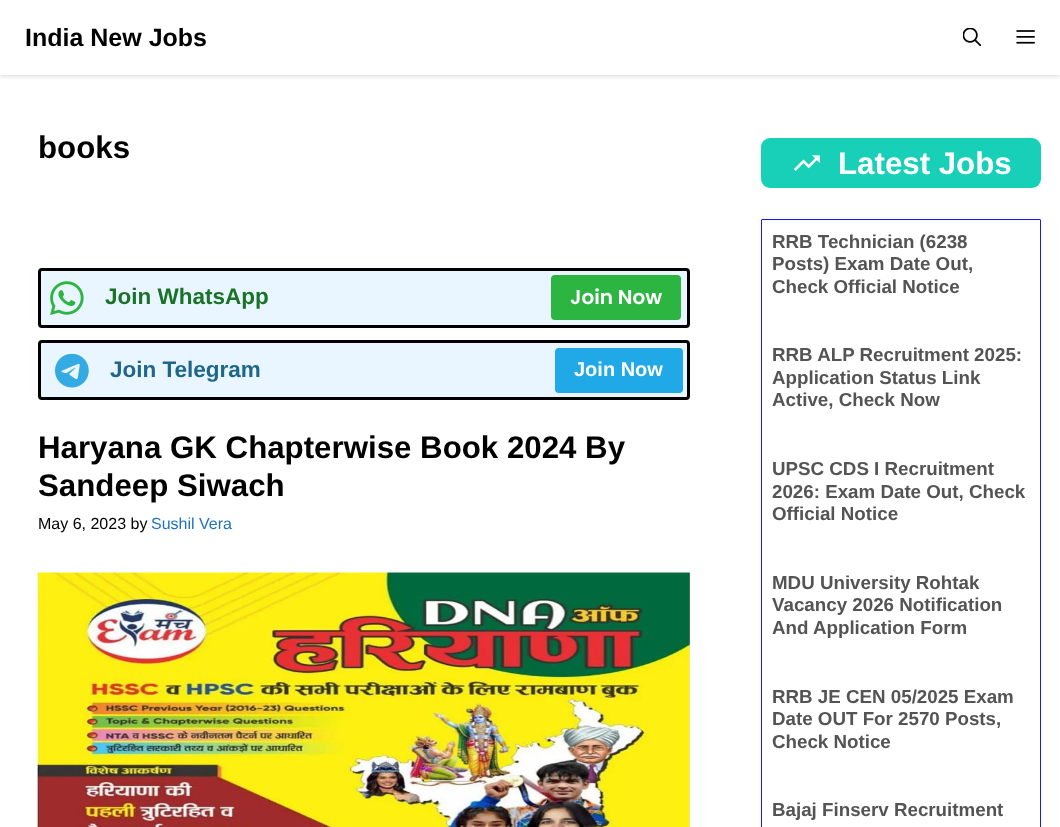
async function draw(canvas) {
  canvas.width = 1060;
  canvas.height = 827;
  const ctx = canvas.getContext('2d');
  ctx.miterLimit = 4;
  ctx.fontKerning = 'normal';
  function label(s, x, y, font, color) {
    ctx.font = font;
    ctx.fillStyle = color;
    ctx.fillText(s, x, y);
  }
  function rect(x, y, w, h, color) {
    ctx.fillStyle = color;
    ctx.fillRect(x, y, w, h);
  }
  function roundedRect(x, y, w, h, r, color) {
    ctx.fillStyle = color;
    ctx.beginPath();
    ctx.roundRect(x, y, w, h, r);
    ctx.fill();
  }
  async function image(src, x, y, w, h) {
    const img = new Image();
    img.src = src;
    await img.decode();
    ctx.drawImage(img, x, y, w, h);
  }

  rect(0, 0, 1060, 827, '#fff');
  ctx.save();
  ctx.beginPath();
  ctx.rect(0, 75, 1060, 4);
  ctx.clip();
  ctx.fillStyle = '#00000029';
  ctx.filter = 'blur(2.5px)';
  ctx.beginPath();
  ctx.rect(0, 1, 1060, 75);
  ctx.fill();
  ctx.filter = 'none';
  ctx.restore();
  label('India New Jobs', 25, 46, 'bold 25px Liberation Sans', '#000');
  await image('assets/img1.png', 963, 28, 18, 18);
  await image('assets/img2.png', 1016, 30, 19, 14);
  label('books', 38, 158, 'bold 31.25px Liberation Sans', '#000');
  ctx.fillStyle = '#eaf6ff';
  ctx.beginPath();
  ctx.roundRect(39.5, 269.5, 649, 57, 2.5);
  ctx.fill();
  ctx.strokeStyle = '#000';
  ctx.lineWidth = 3;
  ctx.stroke();
  await image('assets/img3.png', 50, 281, 34, 34);
  label('Join WhatsApp', 105, 304, 'bold 22.5px Liberation Sans', '#1a7328');
  roundedRect(551, 275, 130, 45, 4, '#2cb641');
  label('Join Now', 570, 304, '600 20px Poppins', '#fff');
  ctx.fillStyle = '#eaf6ff';
  ctx.beginPath();
  ctx.roundRect(39.5, 341.5, 649, 57, 2.5);
  ctx.fill();
  ctx.stroke();
  await image('assets/img4.png', 55, 354, 34, 34);
  label('Join Telegram', 110, 377, 'bold 22.5px Liberation Sans', '#1f6789');
  roundedRect(555, 348, 128, 45, 4, '#20a8e7');
  label('Join Now', 574, 376, 'bold 20px Liberation Sans', '#fff');
  label('Haryana GK Chapterwise Book 2024 By', 38, 458, 'bold 31.25px Liberation Sans', '#000');
  label('Sandeep Siwach', 38, 496, 'bold 31.25px Liberation Sans', '#000');
  label('May 6, 2023 by', 38, 529, '16px Liberation Sans', '#000');
  label('Sushil Vera', 151, 529, '16px Liberation Sans', '#1e73be');
  await image('assets/img5.png', 37, 572, 653, 255);
  roundedRect(761, 138, 280, 50, 9, '#18d0b7');
  await image('assets/img6.png', 794, 155, 26, 16);
  label('Latest Jobs', 838, 174, 'bold 31.25px Liberation Sans', '#fff');
  ctx.beginPath();
  ctx.roundRect(761.5, 219.5, 279, 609, 0.5);
  ctx.strokeStyle = '#1b18ef';
  ctx.lineWidth = 1;
  ctx.stroke();
  label('RRB Technician (6238', 772, 248, 'bold 18.75px Liberation Sans', '#545454');
  label('Posts) Exam Date Out,', 772, 270, 'bold 18.75px Liberation Sans', '#545454');
  label('Check Official Notice', 772, 293, 'bold 18.75px Liberation Sans', '#545454');
  label('RRB ALP Recruitment 2025:', 772, 361, 'bold 18.75px Liberation Sans', '#545454');
  label('Application Status Link', 772, 384, 'bold 18.75px Liberation Sans', '#545454');
  label('Active, Check Now', 772, 406, 'bold 18.75px Liberation Sans', '#545454');
  label('UPSC CDS I Recruitment', 772, 475, 'bold 18.75px Liberation Sans', '#545454');
  label('2026: Exam Date Out, Check', 772, 498, 'bold 18.75px Liberation Sans', '#545454');
  label('Official Notice', 772, 520, 'bold 18.75px Liberation Sans', '#545454');
  label('MDU University Rohtak', 772, 589, 'bold 18.75px Liberation Sans', '#545454');
  label('Vacancy 2026 Notification', 772, 611, 'bold 18.75px Liberation Sans', '#545454');
  label('And Application Form', 772, 634, 'bold 18.75px Liberation Sans', '#545454');
  label('RRB JE CEN 05/2025 Exam', 772, 703, 'bold 18.75px Liberation Sans', '#545454');
  label('Date OUT For 2570 Posts,', 772, 725, 'bold 18.75px Liberation Sans', '#545454');
  label('Check Notice', 772, 748, 'bold 18.75px Liberation Sans', '#545454');
  label('Bajaj Finserv Recruitment', 772, 816, 'bold 18.75px Liberation Sans', '#545454');
}

draw(document.querySelector('canvas'));
